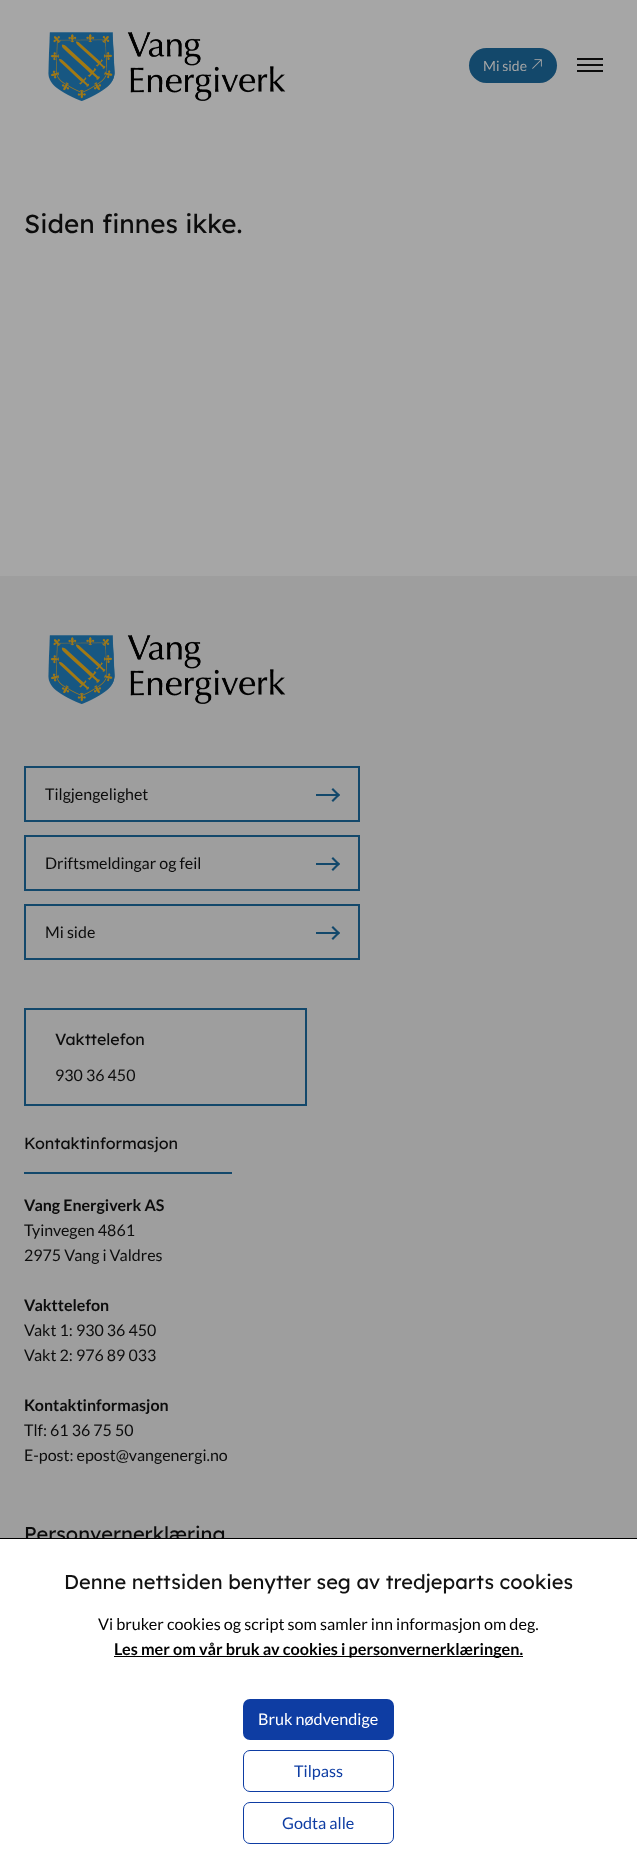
async function draw(canvas) {
  canvas.width = 637;
  canvas.height = 1874;
  const ctx = canvas.getContext('2d');
  ctx.miterLimit = 4;
  ctx.fontKerning = 'normal';
  function label(s, x, y, font, color) {
    ctx.font = font;
    ctx.fillStyle = color;
    ctx.fillText(s, x, y);
  }
  function rect(x, y, w, h, color) {
    ctx.fillStyle = color;
    ctx.fillRect(x, y, w, h);
  }
  function roundedRect(x, y, w, h, r, color) {
    ctx.fillStyle = color;
    ctx.beginPath();
    ctx.roundRect(x, y, w, h, r);
    ctx.fill();
  }
  async function image(src, x, y, w, h) {
    const img = new Image();
    img.src = src;
    await img.decode();
    ctx.drawImage(img, x, y, w, h);
  }
  let path;

  rect(0, 0, 637, 1874, '#a6a6a6');
  await image('assets/img1.png', 48, 32, 238, 69);
  roundedRect(469, 48, 88, 35, 17.5, '#13486b');
  label('Mi side', 483, 71, '14px Lato', '#a6a6a6');
  await image('assets/img2.png', 532, 59, 10, 10);
  rect(577, 58, 26, 2, '#0c0c0c');
  rect(577, 64, 26, 2, '#0c0c0c');
  rect(577, 70, 26, 2, '#0c0c0c');
  label('Siden finnes ikke.', 24, 233, '26px Lexend Deca', '#0c0c0c');
  rect(0, 576, 637, 962, '#9e9e9e');
  await image('assets/img3.png', 48, 635, 238, 69);
  ctx.strokeStyle = '#13486b';
  ctx.lineWidth = 2;
  ctx.strokeRect(25, 767, 334, 54);
  label('Tilgjengelighet', 45, 800, '16px Lato', '#0c0c0c');
  rect(316, 794, 22, 2, '#13486b');
  path = new Path2D('M333 788L340 795L338.5 796.5L331.5 789.5Z');
  ctx.fill(path);
  path = new Path2D('M338.5 793.5L340 795L333 802L331.5 800.5Z');
  ctx.fill(path);
  ctx.strokeRect(25, 836, 334, 54);
  label('Driftsmeldingar og feil', 45, 869, '16px Lato', '#0c0c0c');
  rect(316, 863, 22, 2, '#13486b');
  path = new Path2D('M333 857L340 864L338.5 865.5L331.5 858.5Z');
  ctx.fill(path);
  path = new Path2D('M338.5 862.5L340 864L333 871L331.5 869.5Z');
  ctx.fill(path);
  ctx.strokeRect(25, 905, 334, 54);
  label('Mi side', 45, 938, '16px Lato', '#0c0c0c');
  rect(316, 932, 22, 2, '#13486b');
  path = new Path2D('M333 926L340 933L338.5 934.5L331.5 927.5Z');
  ctx.fill(path);
  path = new Path2D('M338.5 931.5L340 933L333 940L331.5 938.5Z');
  ctx.fill(path);
  ctx.strokeRect(25, 1009, 281, 96);
  label('Vakttelefon', 55, 1045, '16px Lexend Deca', '#0c0c0c');
  label('930 36 450', 55, 1081, '16px Lato', '#0c0c0c');
  label('Kontaktinformasjon', 24, 1149, '16px Lexend Deca', '#0c0c0c');
  rect(24, 1172, 208, 2, '#13486b');
  label('Vang Energiverk AS', 24, 1211, 'bold 16px Lato', '#0c0c0c');
  label('Tyinvegen 4861', 24, 1236, '16px Lato', '#0c0c0c');
  label('2975 Vang i Valdres', 24, 1261, '16px Lato', '#0c0c0c');
  label('Vakttelefon', 24, 1311, 'bold 16px Lato', '#0c0c0c');
  label('Vakt 1: 930 36 450', 24, 1336, '16px Lato', '#0c0c0c');
  label('Vakt 2: 976 89 033', 24, 1361, '16px Lato', '#0c0c0c');
  label('Kontaktinformasjon', 24, 1411, 'bold 16px Lato', '#0c0c0c');
  label('Tlf: 61 36 75 50', 24, 1436, '16px Lato', '#0c0c0c');
  label('E-post: epost@vangenergi.no', 24, 1461, '16px Lato', '#0c0c0c');
  label('Personvernerklæring', 24, 1541, '20px Lexend Deca', '#0c0c0c');
  rect(0, 1539, 637, 335, '#fff');
  rect(0, 1538, 637, 1, '#000');
  label('Denne nettsiden benytter seg av tredjeparts cookies', 64, 1589, '20px Lexend Deca', '#121212');
  label('Vi bruker cookies og script som samler inn informasjon om deg.', 98, 1630, '16.2px Lato', '#000');
  rect(114, 1656, 409, 1, '#000');
  label('Les mer om vår bruk av cookies i personvernerklæringen.', 114, 1655, 'bold 16.2px Lato', '#000');
  roundedRect(243, 1699, 151, 41, 7, '#0e3da3');
  label('Bruk nødvendige', 258, 1725, '16.2px Lato', '#fff');
  ctx.beginPath();
  ctx.roundRect(243.5, 1750.5, 150, 41, 6.5);
  ctx.strokeStyle = '#0e3da3';
  ctx.lineWidth = 1;
  ctx.stroke();
  label('Tilpass', 294, 1777, '16.2px Lato', '#0e3da3');
  ctx.beginPath();
  ctx.roundRect(243.5, 1802.5, 150, 41, 6.5);
  ctx.stroke();
  label('Godta alle', 282, 1829, '16.2px Lato', '#0e3da3');
}

draw(document.querySelector('canvas'));
